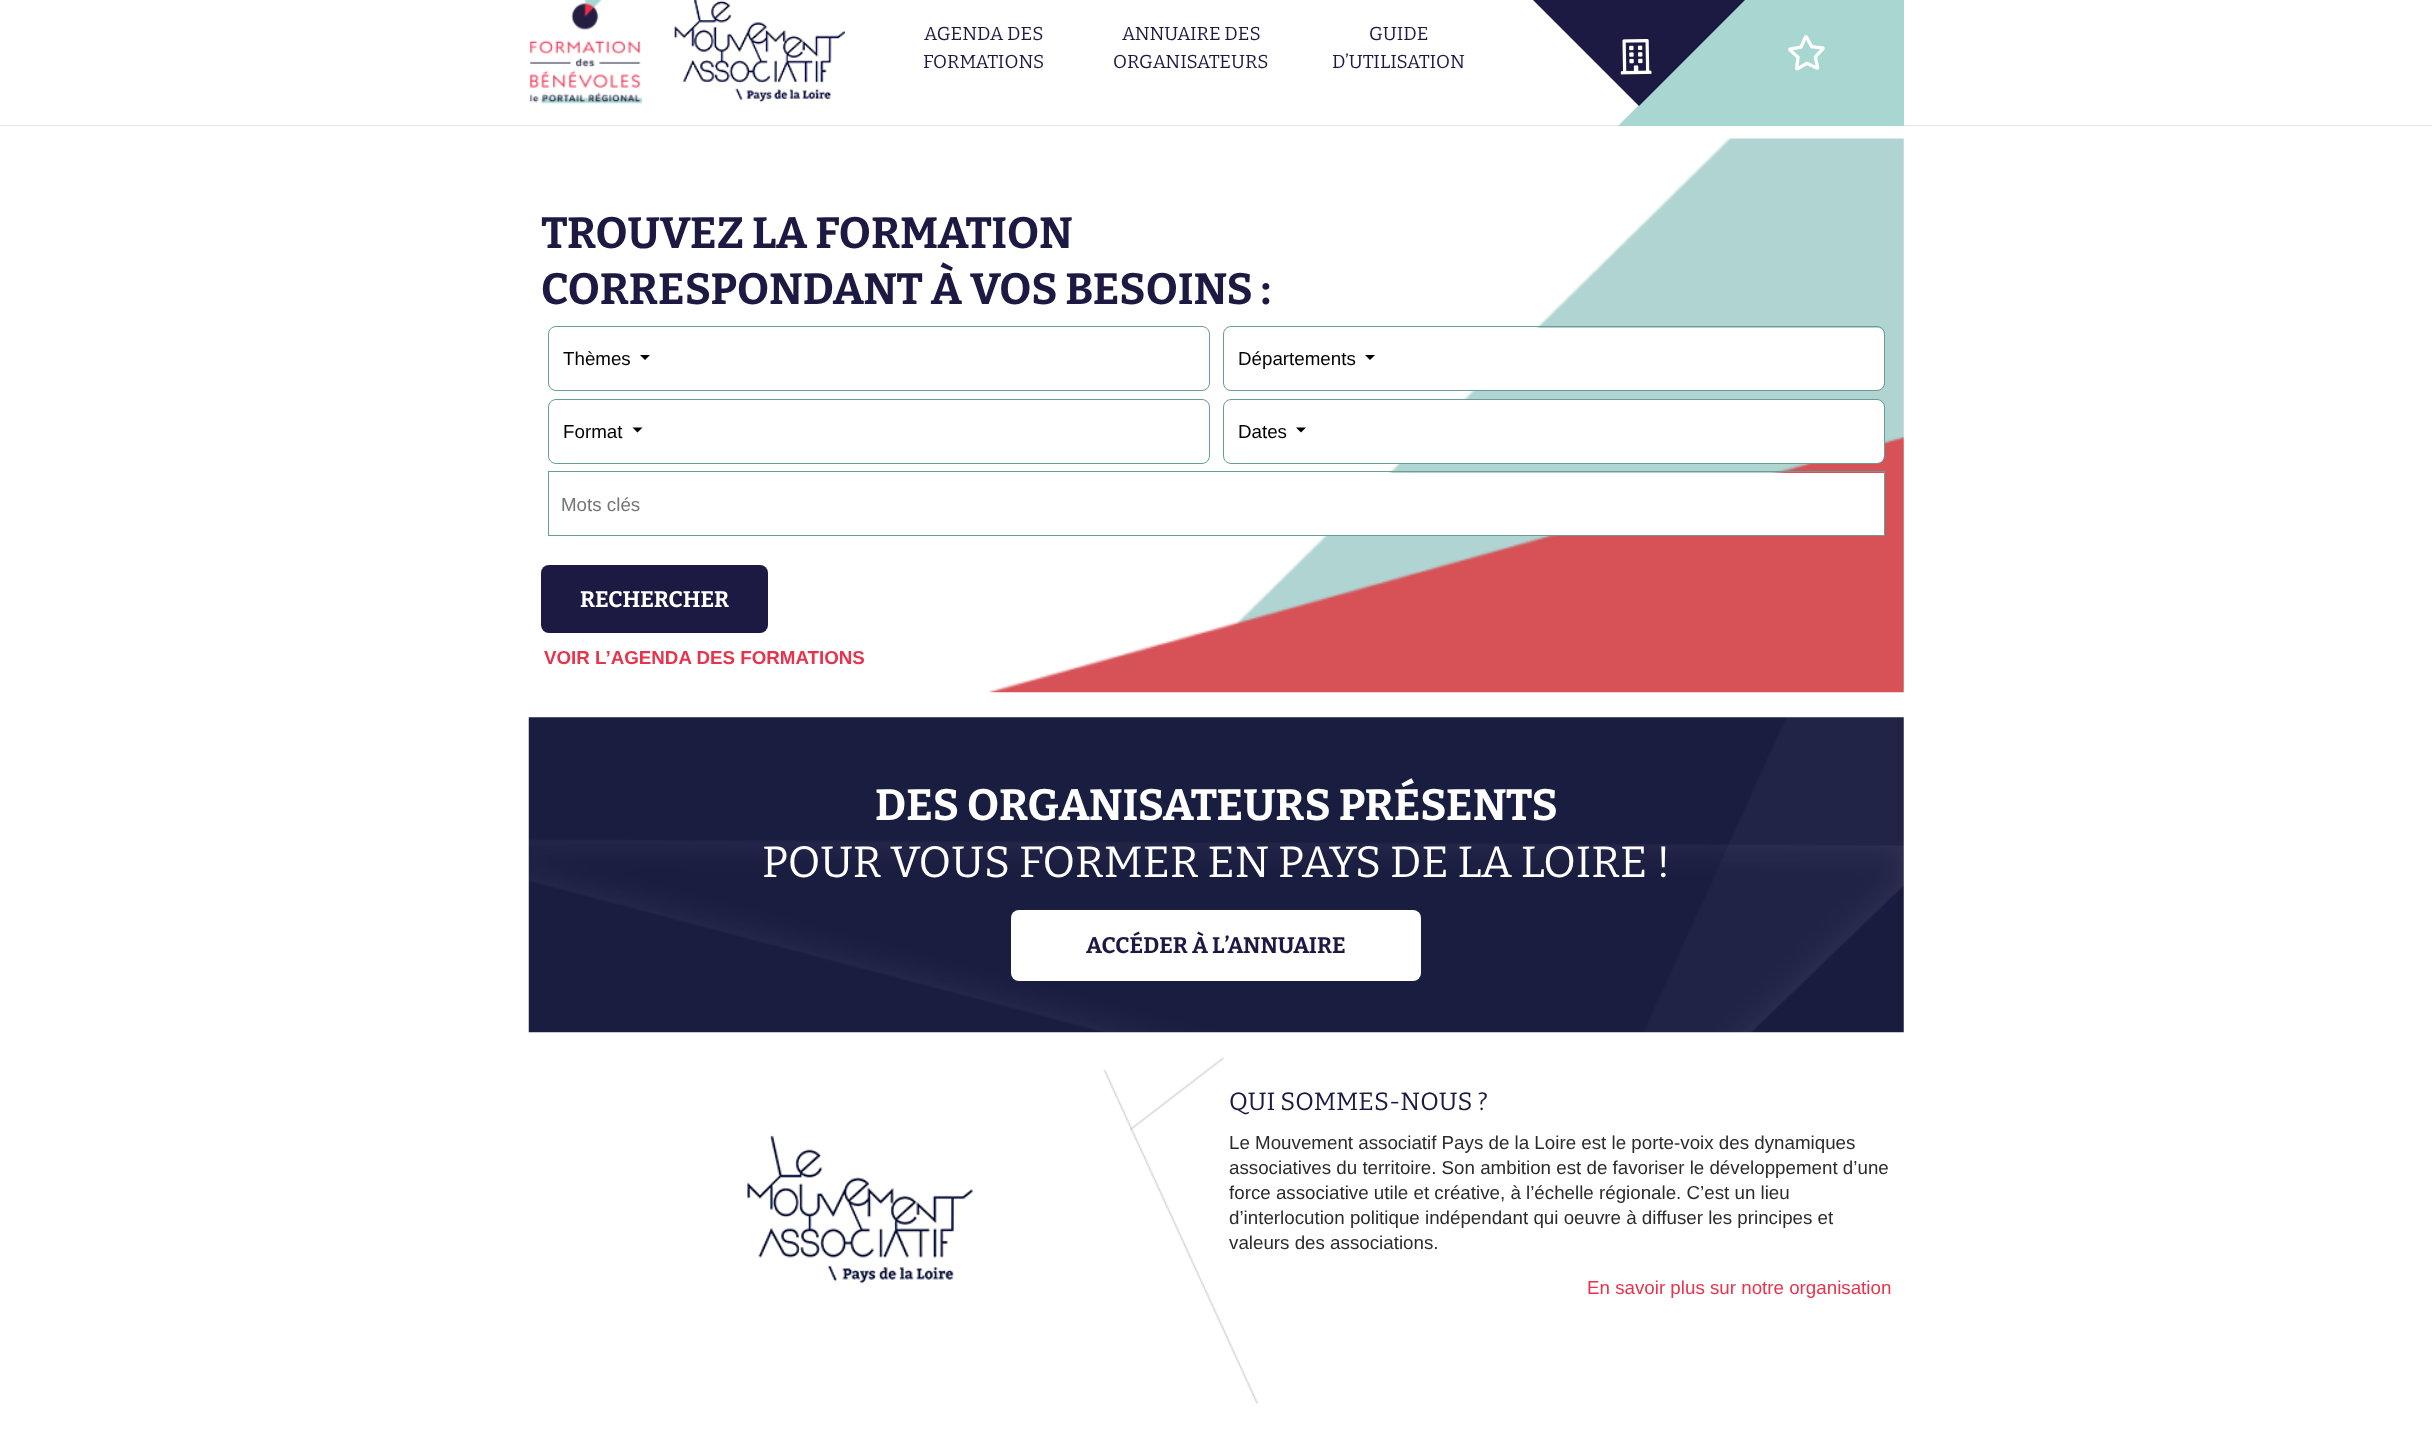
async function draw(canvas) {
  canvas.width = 2432;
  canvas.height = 1447;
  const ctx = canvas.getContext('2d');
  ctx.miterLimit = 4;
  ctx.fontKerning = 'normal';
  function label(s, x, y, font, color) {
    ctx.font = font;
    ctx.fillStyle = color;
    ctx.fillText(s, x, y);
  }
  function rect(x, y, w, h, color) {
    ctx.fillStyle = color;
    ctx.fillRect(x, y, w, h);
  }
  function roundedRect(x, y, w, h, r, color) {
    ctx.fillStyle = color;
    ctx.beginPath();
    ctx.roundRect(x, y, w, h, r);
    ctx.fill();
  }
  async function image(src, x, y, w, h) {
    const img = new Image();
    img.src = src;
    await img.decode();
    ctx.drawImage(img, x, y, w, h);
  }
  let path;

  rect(0, 0, 2432, 1447, '#fff');
  rect(0, 125, 2432, 1, '#e6e6e6');
  await image('assets/img1.png', 529, 0, 316, 104);
  label('AGENDA DES', 924, 40, '18.75px Bitter', '#1c1942');
  label('FORMATIONS', 923, 68, '18.75px Bitter', '#1c1942');
  label('ANNUAIRE DES', 1122, 40, '18.75px Bitter', '#1c1942');
  label('ORGANISATEURS', 1113, 68, '18.75px Bitter', '#1c1942');
  label('GUIDE', 1369, 40, '18.75px Bitter', '#1c1942');
  label('D’UTILISATION', 1332, 68, '18.75px Bitter', '#1c1942');
  ctx.fillStyle = '#a8d7d2';
  path = new Path2D('M1805 126H1618L1805-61Z');
  ctx.fill(path);
  ctx.fillStyle = '#1c1942';
  path = new Path2D('M1639 106L1503-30H1775Z');
  ctx.fill(path);
  await image('assets/img2.png', 1620, 39, 32, 36);
  rect(1805, 0, 99, 126, '#a8d7d2');
  await image('assets/img3.png', 1788, 35, 37, 36);
  await image('assets/img4.png', 988, 138, 916, 555);
  label('TROUVEZ LA FORMATION', 541, 248, 'bold 43.75px Bitter', '#1c1942');
  label('CORRESPONDANT À VOS BESOINS :', 541, 304, 'bold 43.75px Bitter', '#1c1942');
  ctx.fillStyle = '#000';
  path = new Path2D('M640 355H650L645 360Z');
  ctx.fill(path);
  ctx.beginPath();
  ctx.roundRect(548.5, 326.5, 661, 64, 7.5);
  ctx.strokeStyle = '#6a9c97';
  ctx.stroke();
  label('Thèmes', 563, 365, '18.75px Liberation Sans', '#000');
  roundedRect(1224, 328, 660, 62, 6, '#fff');
  ctx.fillStyle = '#000';
  path = new Path2D('M1365 355H1375L1370 360Z');
  ctx.fill(path);
  ctx.beginPath();
  ctx.roundRect(1223.5, 326.5, 661, 64, 7.5);
  ctx.stroke();
  label('Départements', 1238, 365, '18.75px Liberation Sans', '#000');
  path = new Path2D('M632.5 427.5H642.5L637.5 432.5Z');
  ctx.fill(path);
  ctx.beginPath();
  ctx.roundRect(548.5, 399.5, 661, 64, 7.5);
  ctx.stroke();
  label('Format', 563, 438, '18.75px Liberation Sans', '#000');
  roundedRect(1224, 400, 660, 63, 6, '#fff');
  ctx.fillStyle = '#000';
  path = new Path2D('M1296 427.5H1306L1301 432.5Z');
  ctx.fill(path);
  ctx.beginPath();
  ctx.roundRect(1223.5, 399.5, 661, 64, 7.5);
  ctx.stroke();
  label('Dates', 1238, 438, '18.75px Liberation Sans', '#000');
  rect(1325, 473, 559, 62, '#fff');
  ctx.strokeRect(548.5, 471.5, 1336, 64);
  label('Mots clés', 561, 511, '18.75px Liberation Sans', '#757575');
  roundedRect(541, 565, 227, 68, 8, '#1c1942');
  label('RECHERCHER', 580, 607, 'bold 22.5px Bitter', '#fff');
  label('VOIR L’AGENDA DES FORMATIONS', 544, 664, 'bold 18.75px Liberation Sans', '#e7344c');
  await image('assets/img5.png', 528, 717, 1376, 316);
  label('DES ORGANISATEURS PRÉSENTS', 875, 820, 'bold 43.75px Bitter', '#fff');
  label('POUR VOUS FORMER EN PAYS DE LA LOIRE !', 762, 877, '43.75px Bitter', '#fff');
  roundedRect(1011, 910, 410, 71, 8, '#fff');
  label('ACCÉDER À L’ANNUAIRE', 1086, 953, 'bold 22.5px Bitter', '#1c1942');
  await image('assets/img6.png', 747, 1135, 226, 149);
  label('QUI SOMMES-NOUS ?', 1229, 1110, '25px Bitter', '#1c1942');
  label('Le Mouvement associatif Pays de la Loire est le porte-voix des dynamiques', 1229, 1149, '18.75px Liberation Sans', '#2b2b2b');
  label('associatives du territoire. Son ambition est de favoriser le développement d’une', 1229, 1174, '18.75px Liberation Sans', '#2b2b2b');
  label('force associative utile et créative, à l’échelle régionale. C’est un lieu', 1229, 1199, '18.75px Liberation Sans', '#2b2b2b');
  label('d’interlocution politique indépendant qui oeuvre à diffuser les principes et', 1229, 1224, '18.75px Liberation Sans', '#2b2b2b');
  label('valeurs des associations.', 1229, 1249, '18.75px Liberation Sans', '#2b2b2b');
  await image('assets/img7.png', 1103, 1057, 156, 347);
  label('En savoir plus sur notre organisation', 1587, 1294, '18.75px Liberation Sans', '#e7344c');
}

draw(document.querySelector('canvas'));
